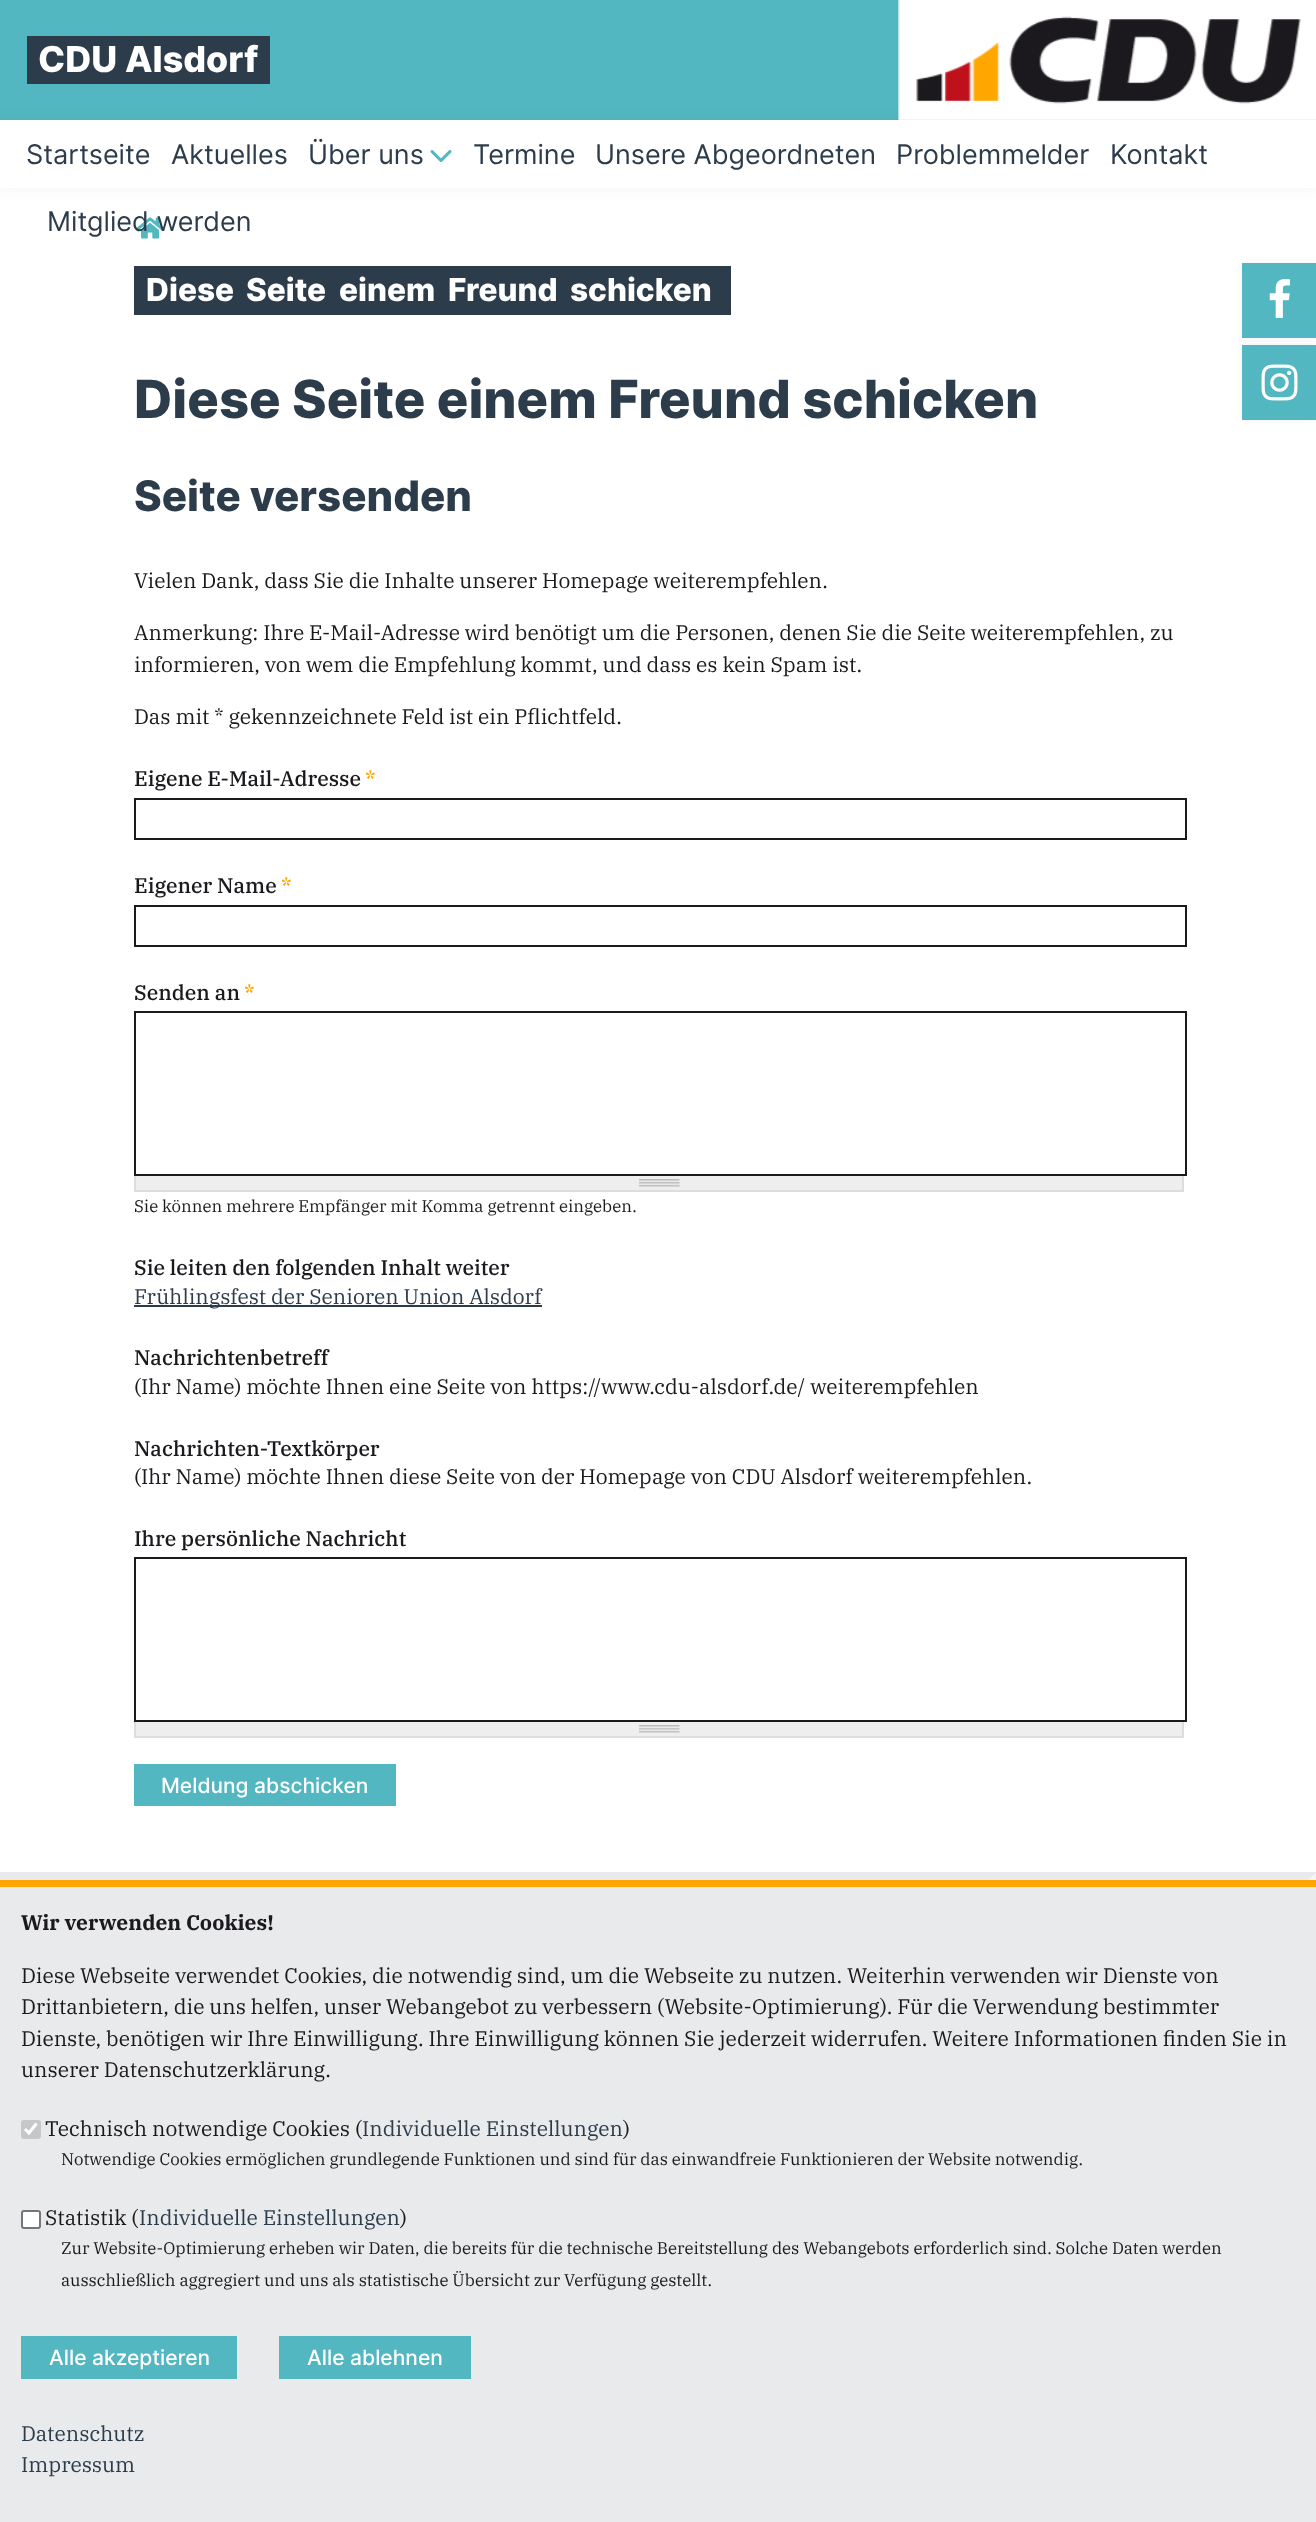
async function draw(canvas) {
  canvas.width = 1316;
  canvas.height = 2522;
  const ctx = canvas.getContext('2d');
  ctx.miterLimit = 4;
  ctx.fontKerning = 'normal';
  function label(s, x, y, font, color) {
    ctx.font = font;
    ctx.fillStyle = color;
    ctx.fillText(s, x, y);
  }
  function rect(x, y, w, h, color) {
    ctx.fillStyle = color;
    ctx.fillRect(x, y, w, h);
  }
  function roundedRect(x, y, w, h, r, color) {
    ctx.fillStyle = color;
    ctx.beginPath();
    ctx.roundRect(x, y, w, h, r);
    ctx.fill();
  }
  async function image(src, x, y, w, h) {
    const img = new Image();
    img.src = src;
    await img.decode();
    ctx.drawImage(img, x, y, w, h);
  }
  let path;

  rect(0, 0, 1316, 2522, '#fff');
  rect(0, 0, 1316, 120, '#52b7c1');
  rect(27, 36, 243, 48, '#2d3c4b');
  label('CDU Alsdorf', 38, 72, '800 35.75px Inter', '#fff');
  ctx.fillStyle = '#0000000d';
  ctx.filter = 'blur(7.5px)';
  ctx.beginPath();
  ctx.rect(0, 120, 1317, 68);
  ctx.fill();
  ctx.filter = 'none';
  await image('assets/img1.png', 898, 0, 418, 120);
  rect(0, 120, 1316, 68, '#fff');
  label('Startseite', 26, 164, '27px Inter', '#2d3c4b');
  label('Aktuelles', 171, 164, '27px Inter', '#2d3c4b');
  label('Über uns', 308, 164, '27px Inter', '#2d3c4b');
  await image('assets/img2.png', 430, 150, 22, 12);
  label('Termine', 473, 164, '27px Inter', '#2d3c4b');
  label('Unsere Abgeordneten', 595, 164, '27px Inter', '#2d3c4b');
  label('Problemmelder', 896, 164, '27px Inter', '#2d3c4b');
  label('Kontakt', 1110, 164, '27px Inter', '#2d3c4b');
  await image('assets/img3.png', 136, 217, 28, 22);
  label('Mitglied werden', 47, 231, '27px Inter', '#2d3c4b');
  rect(134, 266, 436, 49, '#2d3c4b');
  label('Diese', 146, 301, '800 31.5px Inter', '#fff');
  label('Seite', 246, 301, '800 31.5px Inter', '#fff');
  label('einem', 339, 301, '800 31.5px Inter', '#fff');
  label('Freund', 448, 301, '800 31.5px Inter', '#fff');
  rect(570, 266, 161, 49, '#2d3c4b');
  label('schicken', 570, 301, '800 31.5px Inter', '#fff');
  label('Diese Seite einem Freund schicken', 134, 418, '800 52.5px Inter', '#2d3c4b');
  label('Seite versenden', 134, 511, '800 42px Inter', '#2d3c4b');
  label('Vielen Dank, dass Sie die Inhalte unserer Homepage weiterempfehlen.', 134, 588, '21px IBM Plex Serif', '#1b191d');
  label('Anmerkung: Ihre E-Mail-Adresse wird benötigt um die Personen, denen Sie die Seite weiterempfehlen, zu', 134, 640, '21px IBM Plex Serif', '#1b191d');
  label('informieren, von wem die Empfehlung kommt, und dass es kein Spam ist.', 134, 672, '21px IBM Plex Serif', '#1b191d');
  label('Das mit * gekennzeichnete Feld ist ein Pflichtfeld.', 134, 724, '21px IBM Plex Serif', '#1b191d');
  label('Eigene E-Mail-Adresse', 134, 786, '500 21px IBM Plex Serif', '#1b191d');
  label('*', 365, 786, '500 21px IBM Plex Serif', '#ffa600');
  ctx.strokeStyle = '#1b191d';
  ctx.lineWidth = 2;
  ctx.strokeRect(135, 799, 1051, 40);
  label('Eigener Name', 134, 893, '500 21px IBM Plex Serif', '#1b191d');
  label('*', 281, 893, '500 21px IBM Plex Serif', '#ffa600');
  ctx.strokeRect(135, 906, 1051, 40);
  label('Senden an', 134, 1000, '500 21px IBM Plex Serif', '#1b191d');
  label('*', 244, 1000, '500 21px IBM Plex Serif', '#ffa600');
  ctx.strokeRect(135, 1012, 1051, 163);
  rect(136, 1176, 1046, 14, '#eee');
  await image('assets/img4.png', 639, 1179, 41, 8);
  rect(1182, 1176, 2, 15, '#ddd');
  rect(134, 1190, 1050, 2, '#ddd');
  rect(134, 1176, 2, 15, '#ddd');
  label('Sie können mehrere Empfänger mit Komma getrennt eingeben.', 134, 1212, '16.8px IBM Plex Serif', '#1b191d');
  label('Sie leiten den folgenden Inhalt weiter', 134, 1275, '500 21px IBM Plex Serif', '#1b191d');
  rect(134, 1305, 408, 2, '#2d3c4b');
  label('Frühlingsfest der Senioren Union Alsdorf', 134, 1304, '21px IBM Plex Serif', '#2d3c4b');
  label('Nachrichtenbetreff', 134, 1365, '500 21px IBM Plex Serif', '#1b191d');
  label('(Ihr Name) möchte Ihnen eine Seite von https://www.cdu-alsdorf.de/ weiterempfehlen', 134, 1394, '21px IBM Plex Serif', '#1b191d');
  label('Nachrichten-Textkörper', 134, 1456, '500 21px IBM Plex Serif', '#1b191d');
  label('(Ihr Name) möchte Ihnen diese Seite von der Homepage von CDU Alsdorf weiterempfehlen.', 134, 1484, '21px IBM Plex Serif', '#1b191d');
  label('Ihre persönliche Nachricht', 134, 1546, '500 21px IBM Plex Serif', '#1b191d');
  ctx.strokeRect(135, 1558, 1051, 163);
  rect(136, 1722, 1046, 14, '#eee');
  await image('assets/img4.png', 639, 1725, 41, 8);
  rect(1182, 1722, 2, 15, '#ddd');
  rect(134, 1736, 1050, 2, '#ddd');
  rect(134, 1722, 2, 15, '#ddd');
  rect(134, 1764, 262, 42, '#52b7c1');
  label('Meldung abschicken', 161, 1793, '500 21px Inter', '#fff');
  ctx.fillStyle = '#0000000d';
  ctx.filter = 'blur(4px)';
  ctx.beginPath();
  ctx.rect(1242, 263, 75, 75);
  ctx.fill();
  ctx.filter = 'none';
  rect(1242, 263, 74, 75, '#52b7c1');
  await image('assets/img5.png', 1269, 279, 21, 39);
  ctx.fillStyle = '#0000000d';
  ctx.filter = 'blur(4px)';
  ctx.beginPath();
  ctx.rect(1242, 345, 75, 75);
  ctx.fill();
  ctx.filter = 'none';
  rect(1242, 345, 74, 75, '#52b7c1');
  await image('assets/img6.png', 1261, 364, 37, 37);
  rect(0, 1872, 1316, 8, '#e9eaec');
  ctx.fillStyle = '#f4f5f6';
  path = new Path2D('M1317 1872V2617H1004V2093C1087 2045 1168 1992 1244 1932L1295 1891L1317 1872');
  ctx.fill(path);
  rect(0, 1887, 1316, 635, '#e9eaec');
  rect(0, 1880, 1316, 7, '#ffa600');
  label('Wir verwenden Cookies!', 21, 1930, 'bold 21px IBM Plex Serif', '#1b191d');
  label('Diese Webseite verwendet Cookies, die notwendig sind, um die Webseite zu nutzen. Weiterhin verwenden wir Dienste von', 21, 1983, '21px IBM Plex Serif', '#1b191d');
  label('Drittanbietern, die uns helfen, unser Webangebot zu verbessern (Website-Optimierung). Für die Verwendung bestimmter', 21, 2014, '21px IBM Plex Serif', '#1b191d');
  label('Dienste, benötigen wir Ihre Einwilligung. Ihre Einwilligung können Sie jederzeit widerrufen. Weitere Informationen finden Sie in', 21, 2046, '21px IBM Plex Serif', '#1b191d');
  label('unserer Datenschutzerklärung.', 21, 2077, '21px IBM Plex Serif', '#1b191d');
  roundedRect(21, 2120, 20, 19, 3, '#c7c7c9');
  path = new Path2D('M25 2129L29 2133L36.5 2123.5');
  ctx.strokeStyle = '#fff';
  ctx.lineWidth = 3.1;
  ctx.stroke(path);
  label('Technisch notwendige Cookies (', 45, 2136, '21px IBM Plex Serif', '#1b191d');
  label('Individuelle Einstellungen', 362, 2136, '21px IBM Plex Serif', '#2d3c4b');
  label(')', 623, 2136, '21px IBM Plex Serif', '#1b191d');
  label('Notwendige Cookies ermöglichen grundlegende Funktionen und sind für das einwandfreie Funktionieren der Website notwendig.', 61, 2165, '16.8px IBM Plex Serif', '#1b191d');
  ctx.fillStyle = '#fff';
  ctx.beginPath();
  ctx.roundRect(22, 2211, 18, 17, 2);
  ctx.fill();
  ctx.strokeStyle = '#767676';
  ctx.lineWidth = 2;
  ctx.stroke();
  label('Statistik (', 45, 2225, '21px IBM Plex Serif', '#1b191d');
  label('Individuelle Einstellungen', 139, 2225, '21px IBM Plex Serif', '#2d3c4b');
  label(')', 400, 2225, '21px IBM Plex Serif', '#1b191d');
  label('Zur Website-Optimierung erheben wir Daten, die bereits für die technische Bereitstellung des Webangebots erforderlich sind. Solche Daten werden', 61, 2254, '16.8px IBM Plex Serif', '#1b191d');
  label('ausschließlich aggregiert und uns als statistische Übersicht zur Verfügung gestellt.', 61, 2286, '16.8px IBM Plex Serif', '#1b191d');
  rect(21, 2336, 216, 43, '#52b7c1');
  label('Alle akzeptieren', 49, 2365, '500 21px Inter', '#fff');
  rect(279, 2336, 192, 43, '#52b7c1');
  label('Alle ablehnen', 307, 2365, '500 21px Inter', '#fff');
  label('Datenschutz', 21, 2441, '21px IBM Plex Serif', '#2d3c4b');
  label('Impressum', 21, 2472, '21px IBM Plex Serif', '#2d3c4b');
}

draw(document.querySelector('canvas'));
